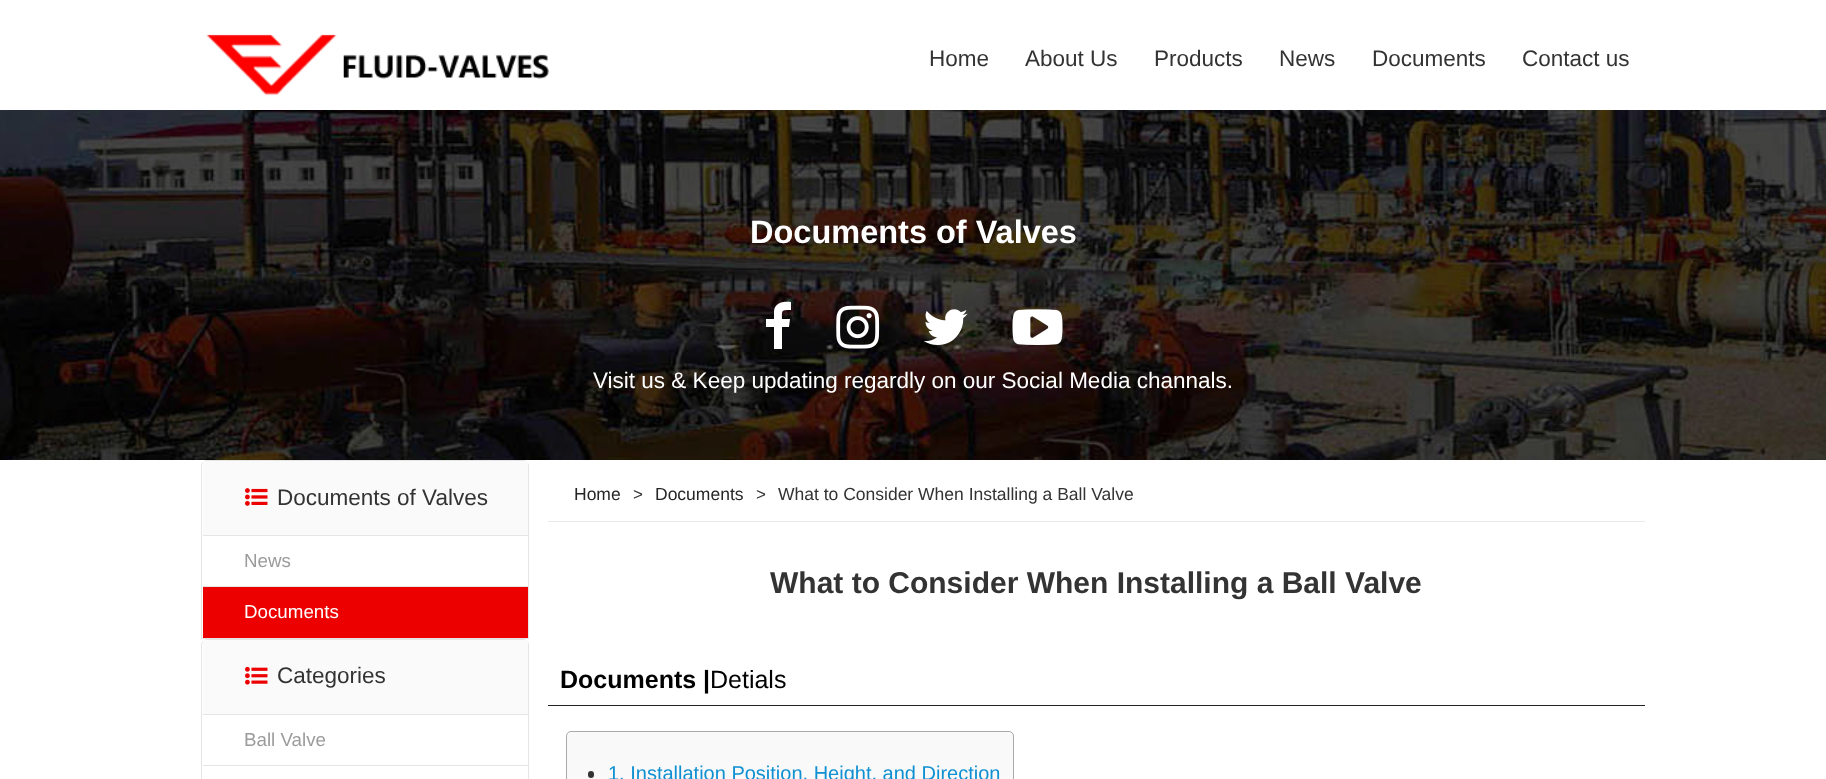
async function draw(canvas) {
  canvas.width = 1826;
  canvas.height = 779;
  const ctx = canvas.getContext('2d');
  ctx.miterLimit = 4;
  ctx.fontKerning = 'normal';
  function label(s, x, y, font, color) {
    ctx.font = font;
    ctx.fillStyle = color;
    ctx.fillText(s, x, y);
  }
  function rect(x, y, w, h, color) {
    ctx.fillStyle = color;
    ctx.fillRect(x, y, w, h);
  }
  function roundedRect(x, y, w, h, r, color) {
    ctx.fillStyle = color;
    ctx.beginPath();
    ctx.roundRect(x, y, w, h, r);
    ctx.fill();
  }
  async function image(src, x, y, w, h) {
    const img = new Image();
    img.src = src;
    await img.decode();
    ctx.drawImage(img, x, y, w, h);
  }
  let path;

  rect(0, 0, 1826, 779, '#fff');
  await image('assets/img1.png', 206, 34, 343, 62);
  label('Home', 929, 66, '22.5px Liberation Sans', '#333');
  label('About Us', 1025, 66, '22.5px Liberation Sans', '#333');
  label('Products', 1154, 66, '22.5px Liberation Sans', '#333');
  label('News', 1279, 66, '22.5px Liberation Sans', '#333');
  label('Documents', 1372, 66, '22.5px Liberation Sans', '#333');
  label('Contact us', 1522, 66, '22.5px Liberation Sans', '#333');
  await image('assets/img2.png', 0, 110, 1826, 350);
  label('Documents of Valves', 750, 243, 'bold 32.5px Liberation Sans', '#fff');
  path = new Path2D('M791 302V310C781 310 782 310 782 319H790L789 327H782V349H774V327H766V319H774V311C775 302 784 301 791 302Z');
  ctx.fill(path);
  await image('assets/img3.png', 836, 305, 44, 44);
  await image('assets/img4.png', 924, 309, 44, 36);
  await image('assets/img5.png', 1012, 309, 51, 36);
  label('Visit us & Keep updating regardly on our Social Media channals.', 593, 388, '22.5px Liberation Sans', '#fff');
  ctx.beginPath();
  ctx.roundRect(201.5, 460.5, 327, 178, [5.5, 5.5, 0, 0]);
  ctx.strokeStyle = '#e5e5e5';
  ctx.stroke();
  rect(203, 461, 325, 74, '#fafafa');
  await image('assets/img6.png', 245, 488, 23, 18);
  label('Documents of Valves', 277, 505, '22.5px Liberation Sans', '#333');
  rect(203, 535, 325, 1, '#e5e5e5');
  label('News', 244, 567, '18.75px Liberation Sans', '#9b9b9b');
  rect(203, 587, 325, 51, '#ec0000');
  rect(203, 586, 325, 1, '#e5e5e5');
  label('Documents', 244, 618, '18.75px Liberation Sans', '#fff');
  path = new Path2D('M207 639.5H523C526 639.5 528.5 642 528.5 645V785.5H201.5V645C201.5 642 204 639.5 207 639.5Z');
  ctx.stroke(path);
  rect(203, 640, 325, 74, '#fafafa');
  await image('assets/img7.png', 245, 666, 23, 19);
  label('Categories', 277, 683, '22.5px Liberation Sans', '#333');
  rect(203, 714, 325, 1, '#e5e5e5');
  label('Ball Valve', 244, 746, '18.75px Liberation Sans', '#9b9b9b');
  rect(203, 765, 325, 1, '#e5e5e5');
  rect(548, 521, 1097, 1, '#e9e9e9');
  label('Home', 574, 500, '17.5px Liberation Sans', '#262626');
  label('>', 633, 500, '17px Liberation Sans', '#333');
  label('Documents', 655, 500, '17.5px Liberation Sans', '#262626');
  label('>', 756, 500, '17px Liberation Sans', '#333');
  label('What to Consider When Installing a Ball Valve', 778, 500, '17.5px Liberation Sans', '#333');
  label('What to Consider When Installing a Ball Valve', 770, 593, 'bold 30px Liberation Sans', '#333');
  rect(548, 705, 1097, 1, '#232323');
  label('Documents |', 560, 688, 'bold 25px Liberation Sans', '#000');
  label('Detials', 710, 688, '25px Liberation Sans', '#000');
  ctx.fillStyle = '#f9f9f9';
  ctx.beginPath();
  ctx.roundRect(566.5, 731.5, 447, 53, 4.5);
  ctx.fill();
  ctx.strokeStyle = '#aaa';
  ctx.stroke();
  roundedRect(588, 771, 6, 7, 3, '#333');
  label('1. Installation Position, Height, and Direction', 608, 780, '20px Liberation Sans', '#0e90d2');
}

draw(document.querySelector('canvas'));
